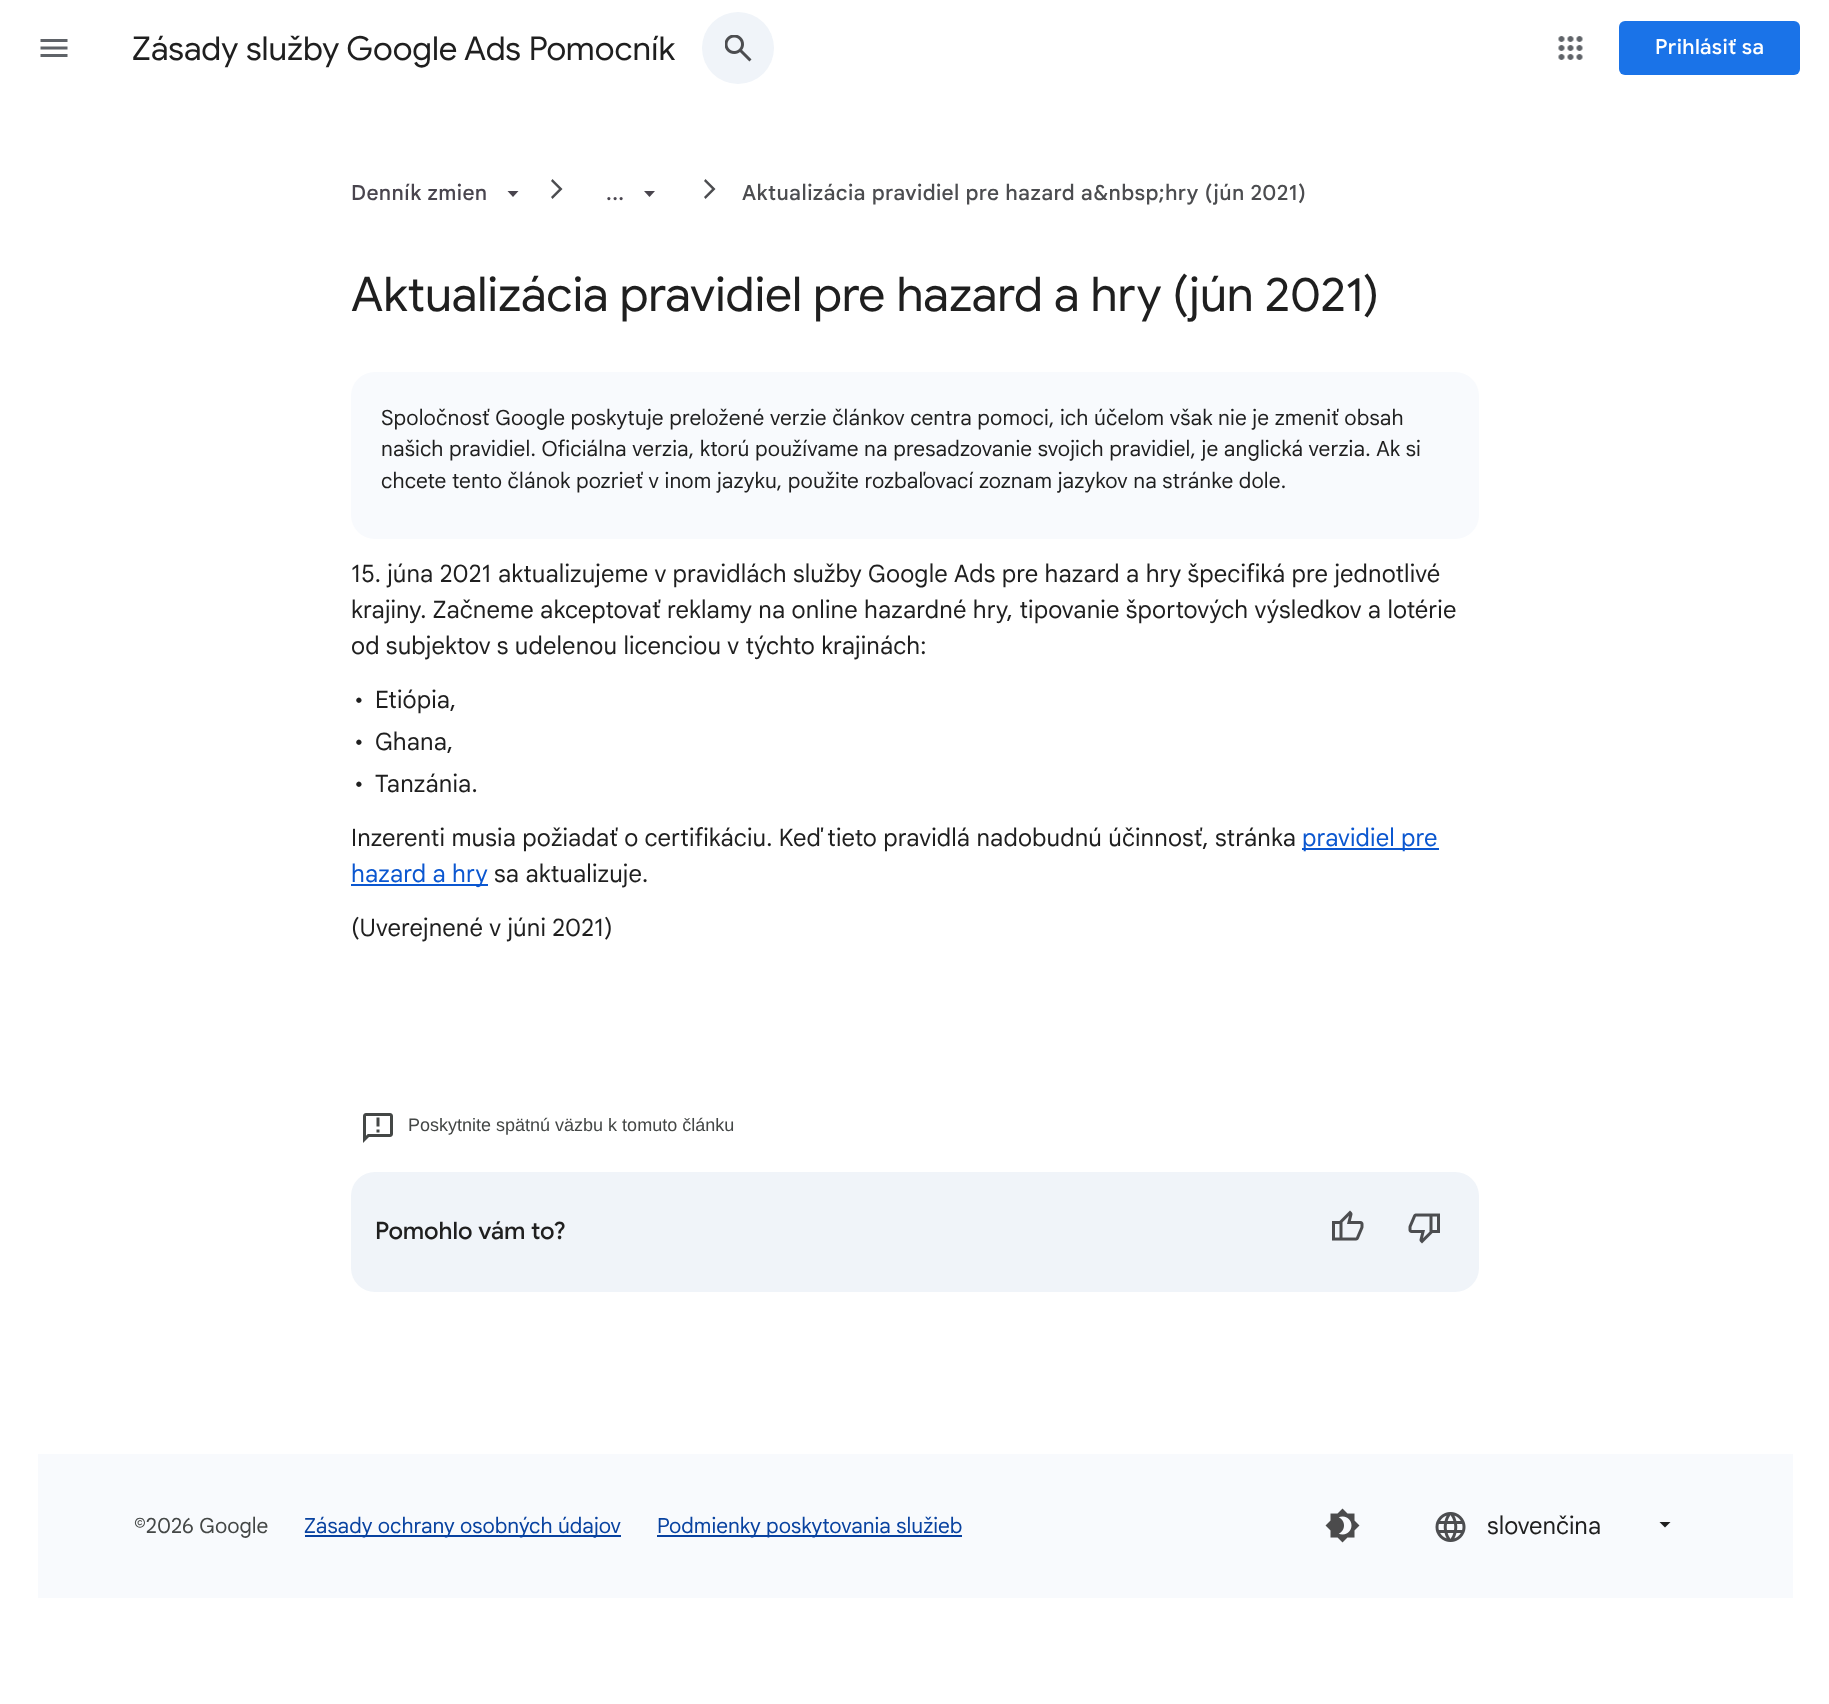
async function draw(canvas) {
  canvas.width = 1829;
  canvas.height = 1704;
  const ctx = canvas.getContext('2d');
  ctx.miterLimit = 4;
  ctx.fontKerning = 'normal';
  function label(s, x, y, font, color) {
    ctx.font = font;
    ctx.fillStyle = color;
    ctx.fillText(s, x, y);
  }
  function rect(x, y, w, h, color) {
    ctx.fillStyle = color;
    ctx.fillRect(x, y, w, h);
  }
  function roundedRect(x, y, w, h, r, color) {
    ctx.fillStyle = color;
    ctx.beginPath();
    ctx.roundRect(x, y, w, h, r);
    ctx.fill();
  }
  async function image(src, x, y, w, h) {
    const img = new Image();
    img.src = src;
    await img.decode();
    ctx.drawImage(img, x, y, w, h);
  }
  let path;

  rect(0, 0, 1829, 1704, '#fff');
  await image('assets/img1.png', 40, 39, 28, 18);
  label('Zásady služby Google Ads Pomocník', 132, 60, '33px Google Sans', '#1f1f1f');
  ctx.fillStyle = '#f0f4f9';
  ctx.beginPath();
  ctx.arc(738, 48, 36, 0, 2 * Math.PI);
  ctx.fill();
  await image('assets/img2.png', 725, 35, 27, 27);
  await image('assets/img3.png', 1558, 36, 25, 24);
  roundedRect(1619, 21, 181, 54, 6, '#1a73e8');
  ctx.letterSpacing = '0.38px';
  label('Prihlásiť sa', 1655, 54, '500 21px Google Sans', '#fff');
  label('Denník zmien', 351, 200, '500 21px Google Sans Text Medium', '#49454e');
  path = new Path2D('M507.5 191L513 197L518.5 191Z');
  ctx.fill(path);
  ctx.fillStyle = '#4c4d50';
  path = new Path2D('M552.5 199L551 197L559 189L551 181L552.5 179L562.5 189Z');
  ctx.fill(path);
  ctx.fillStyle = '#49454e';
  path = new Path2D('M644 191L649.5 197L655 191Z');
  ctx.fill(path);
  label('...', 606, 200, '500 21px Google Sans Text Medium', '#49454e');
  ctx.fillStyle = '#4c4d50';
  path = new Path2D('M705.5 199L704 197L712 189L704 181L705.5 179L715.5 189Z');
  ctx.fill(path);
  label('Aktualizácia pravidiel pre hazard a&nbsp;hry (jún 2021)', 742, 200, '500 21px Google Sans Text Medium', '#4c4d50');
  ctx.letterSpacing = '0px';
  label('Aktualizácia pravidiel pre hazard a hry (jún 2021)', 351, 311, '48px Google Sans', '#1f1f1f');
  roundedRect(351, 372, 1128, 167, 24, '#f8fafd');
  ctx.letterSpacing = '0.12px';
  label('Spoločnosť Google poskytuje preložené verzie článkov centra pomoci, ich účelom však nie je zmeniť obsah', 381, 425, '21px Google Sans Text', '#1f1f1f');
  label('našich pravidiel. Oficiálna verzia, ktorú používame na presadzovanie svojich pravidiel, je anglická verzia. Ak si', 381, 456, '21px Google Sans Text', '#1f1f1f');
  label('chcete tento článok pozrieť v inom jazyku, použite rozbaľovací zoznam jazykov na stránke dole.', 381, 488, '21px Google Sans Text', '#1f1f1f');
  label('15. júna 2021 aktualizujeme v pravidlách služby Google Ads pre hazard a hry špecifiká pre jednotlivé', 351, 582, '24px Google Sans Text', '#1f1f1f');
  label('krajiny. Začneme akceptovať reklamy na online hazardné hry, tipovanie športových výsledkov a lotérie', 351, 618, '24px Google Sans Text', '#1f1f1f');
  label('od subjektov s udelenou licenciou v týchto krajinách:', 351, 654, '24px Google Sans Text', '#1f1f1f');
  label('•', 354, 708, '24px Google Sans Text', '#1f1f1f');
  label('Etiópia,', 375, 708, '24px Google Sans Text', '#1f1f1f');
  label('•', 354, 750, '24px Google Sans Text', '#1f1f1f');
  label('Ghana,', 375, 750, '24px Google Sans Text', '#1f1f1f');
  label('•', 354, 792, '24px Google Sans Text', '#1f1f1f');
  label('Tanzánia.', 375, 792, '24px Google Sans Text', '#1f1f1f');
  label('Inzerenti musia požiadať o certifikáciu. Keď tieto pravidlá nadobudnú účinnosť, stránka', 351, 846, '24px Google Sans Text', '#1f1f1f');
  rect(1302, 848, 137, 2, '#0b57d0');
  label('pravidiel pre', 1302, 846, '24px Google Sans Text', '#0b57d0');
  rect(351, 884, 137, 2, '#0b57d0');
  label('hazard a hry', 351, 882, '24px Google Sans Text', '#0b57d0');
  label('sa aktualizuje.', 494, 882, '24px Google Sans Text', '#1f1f1f');
  label('(Uverejnené v júni 2021)', 351, 936, '24px Google Sans Text', '#1f1f1f');
  await image('assets/img4.png', 363, 1113, 30, 30);
  ctx.letterSpacing = '0px';
  label('Poskytnite spätnú väzbu k tomuto článku', 408, 1131, '18px Liberation Sans', '#444746');
  roundedRect(351, 1172, 1128, 120, 24, '#f0f4f9');
  label('Pomohlo vám to?', 375, 1239, '500 24px Google Sans', '#1f1f1f');
  await image('assets/img5.png', 1332, 1210, 32, 31);
  await image('assets/img6.png', 1408, 1213, 32, 31);
  rect(38, 1454, 1755, 144, '#f8fafd');
  label('©2026 Google', 134, 1533, '21px Google Sans Text', '#444746');
  rect(305, 1535, 316, 2, '#0842a0');
  label('Zásady ochrany osobných údajov', 304, 1533, '21px Google Sans Text', '#0842a0');
  rect(657, 1535, 305, 2, '#0842a0');
  label('Podmienky poskytovania služieb', 657, 1533, '21px Google Sans Text', '#0842a0');
  await image('assets/img7.png', 1325, 1508, 35, 35);
  await image('assets/img8.png', 1435, 1512, 31, 30);
  label('slovenčina', 1487, 1534, '24px Google Sans Text', '#1f1f1f');
  path = new Path2D('M1659.5 1522L1665 1527.5L1670.5 1522Z');
  ctx.fill(path);
}

draw(document.querySelector('canvas'));
